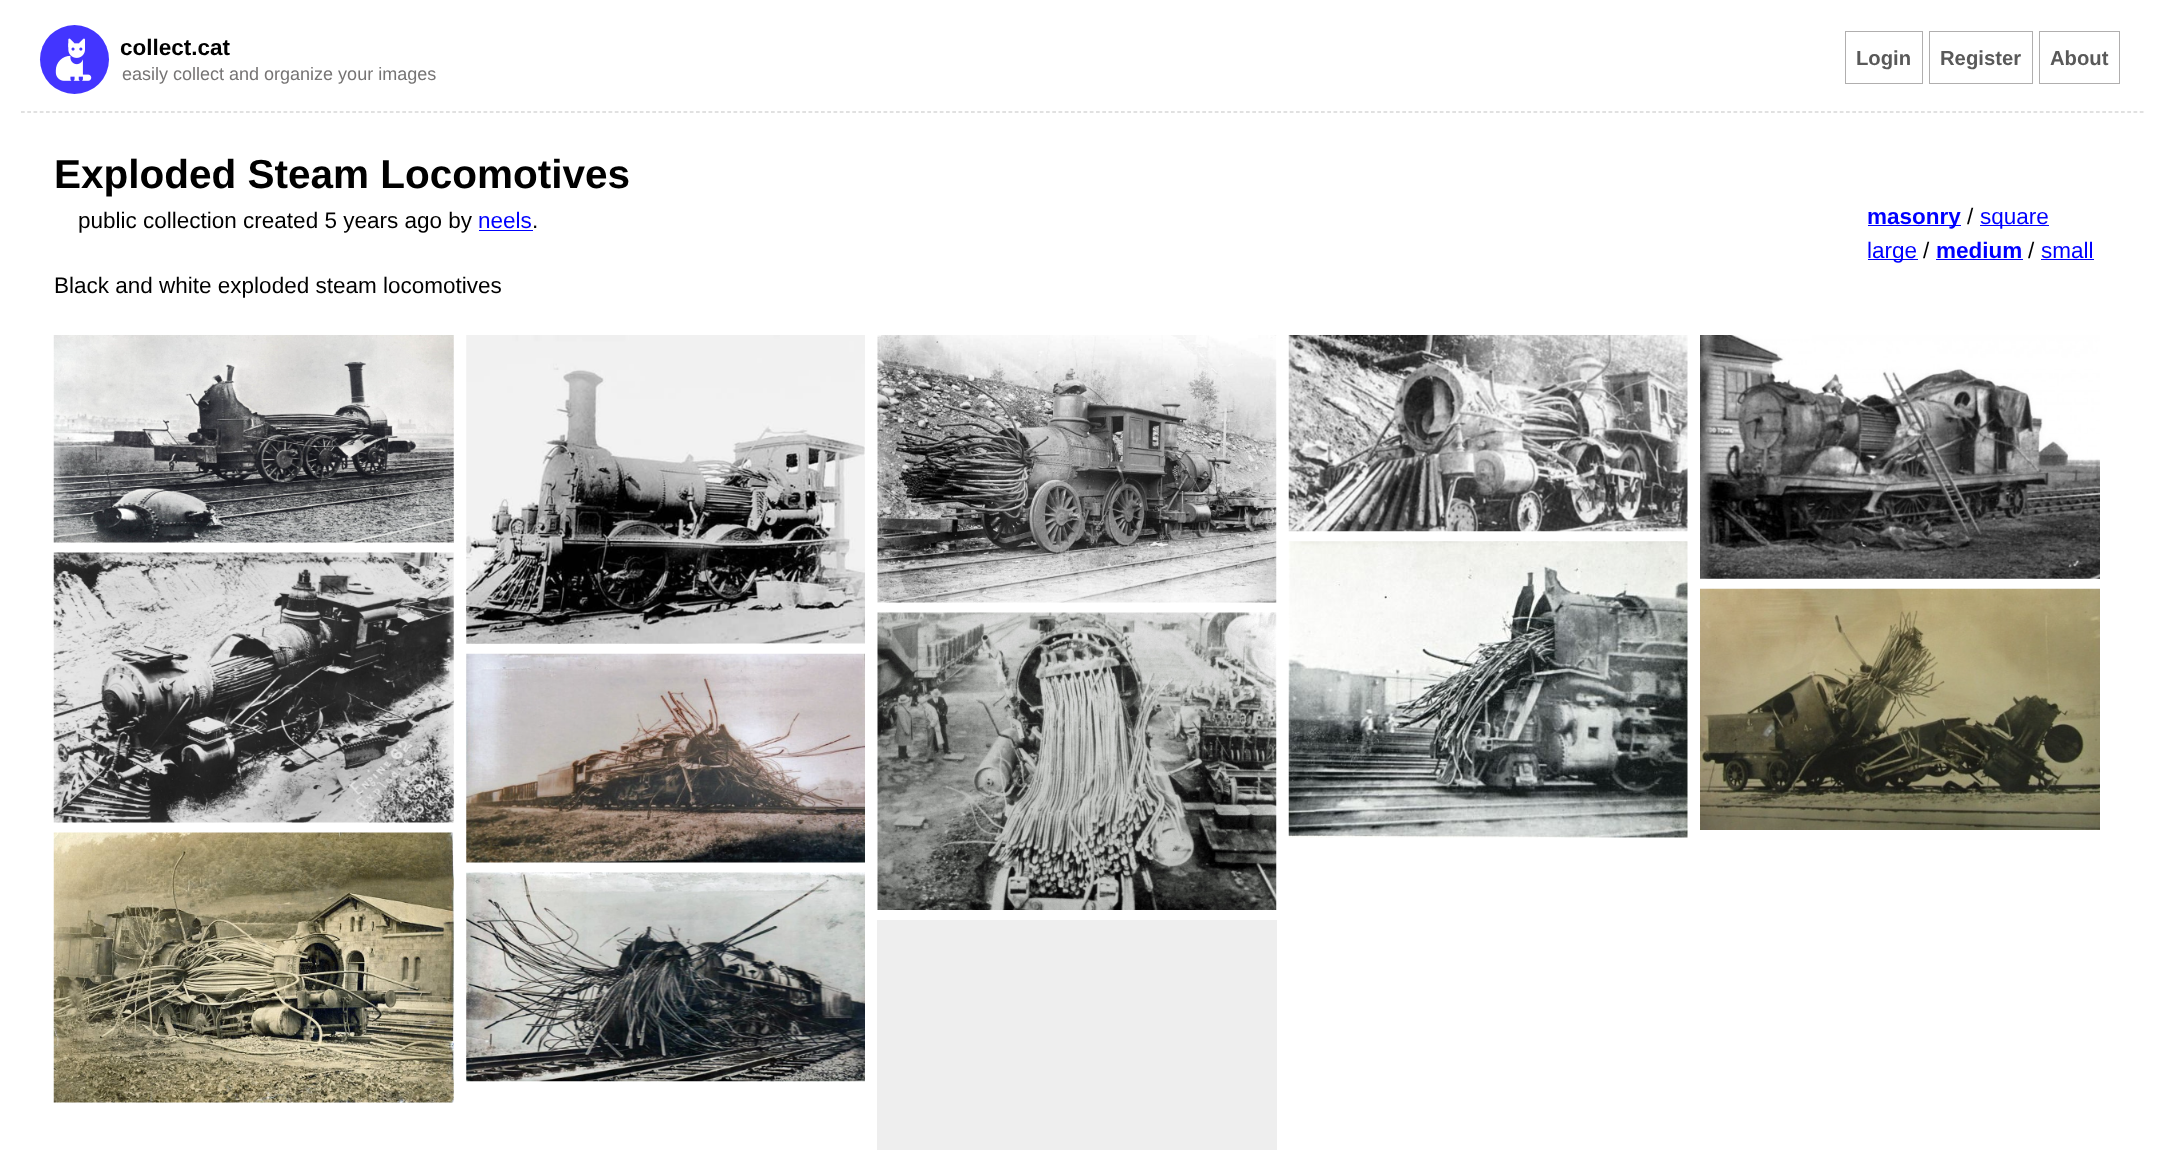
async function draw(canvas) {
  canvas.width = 2166;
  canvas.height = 1150;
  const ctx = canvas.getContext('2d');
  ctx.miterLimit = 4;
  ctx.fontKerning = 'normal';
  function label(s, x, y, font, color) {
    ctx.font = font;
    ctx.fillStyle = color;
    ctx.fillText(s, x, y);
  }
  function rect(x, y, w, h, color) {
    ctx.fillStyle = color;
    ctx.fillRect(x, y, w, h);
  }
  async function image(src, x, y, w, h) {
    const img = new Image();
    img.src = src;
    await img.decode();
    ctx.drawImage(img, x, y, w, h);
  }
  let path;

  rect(0, 0, 2166, 1150, '#fff');
  path = new Path2D('M21 112H2145');
  ctx.strokeStyle = '#c4c4c4';
  ctx.lineWidth = 1.2;
  ctx.setLineDash([3.75, 2.5]);
  ctx.stroke(path);
  ctx.fillStyle = '#4335ff';
  ctx.beginPath();
  ctx.arc(74.5, 59.5, 34.5, 0, 2 * Math.PI);
  ctx.fill();
  await image('assets/img1.png', 55, 38, 37, 43);
  label('collect.cat', 120, 55, 'bold 22.5px Liberation Sans', '#000');
  label('easily collect and organize your images', 122, 80, '18px Liberation Sans', '#767474');
  ctx.strokeStyle = '#b0aeae';
  ctx.lineWidth = 1;
  ctx.setLineDash([]);
  ctx.strokeRect(1845.5, 31.5, 77, 52);
  label('Login', 1856, 65, 'bold 20.25px Liberation Sans', '#595959');
  ctx.strokeRect(1929.5, 31.5, 103, 52);
  label('Register', 1940, 65, 'bold 20.25px Liberation Sans', '#595959');
  ctx.strokeRect(2039.5, 31.5, 80, 52);
  label('About', 2050, 65, 'bold 20.25px Liberation Sans', '#595959');
  label('Exploded Steam Locomotives', 54, 188, 'bold 40.5px Liberation Sans', '#000');
  label('public collection created 5 years ago by', 78, 228, '22.5px Liberation Sans', '#000');
  label('neels', 478, 228, '22.5px Liberation Sans', '#00f');
  rect(479, 230, 54, 1, '#00f');
  label('.', 532, 228, '22.5px Liberation Sans', '#000');
  rect(1868, 225, 93, 1, '#00f');
  label('masonry', 1867, 224, 'bold 22.5px Liberation Sans', '#00f');
  label('/', 1967, 224, '22.5px Liberation Sans', '#000');
  rect(1980, 225, 69, 1, '#00f');
  label('square', 1980, 224, '22.5px Liberation Sans', '#00f');
  rect(1868, 259, 50, 1, '#00f');
  label('large', 1867, 258, '22.5px Liberation Sans', '#00f');
  label('/', 1923, 258, '22.5px Liberation Sans', '#000');
  label('medium', 1936, 258, 'bold 22.5px Liberation Sans', '#00f');
  rect(1936, 259, 87, 1, '#00f');
  label('/', 2028, 258, '22.5px Liberation Sans', '#000');
  label('small', 2041, 258, '22.5px Liberation Sans', '#00f');
  rect(2041, 259, 53, 1, '#00f');
  label('Black and white exploded steam locomotives', 54, 293, '22.5px Liberation Sans', '#000');
  await image('assets/img2.png', 53, 335, 401, 208);
  await image('assets/img3.png', 466, 335, 399, 309);
  await image('assets/img4.png', 877, 335, 400, 268);
  await image('assets/img5.png', 1288, 335, 400, 197);
  await image('assets/img6.png', 1700, 335, 400, 244);
  await image('assets/img7.png', 53, 552, 401, 271);
  await image('assets/img8.png', 466, 653, 399, 210);
  await image('assets/img9.png', 877, 612, 400, 298);
  await image('assets/img10.png', 1288, 541, 400, 297);
  await image('assets/img11.png', 1700, 588, 400, 242);
  await image('assets/img12.png', 53, 832, 401, 271);
  await image('assets/img13.png', 466, 872, 399, 210);
  rect(877, 920, 400, 230, '#eee');
}

draw(document.querySelector('canvas'));
